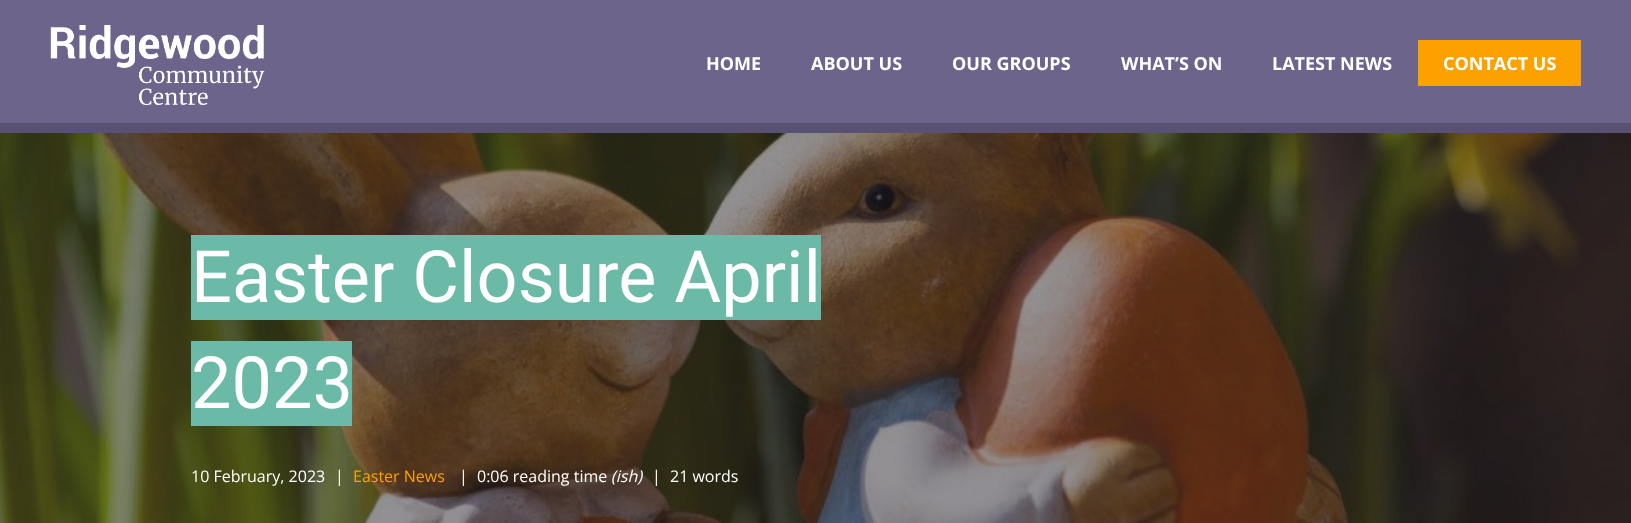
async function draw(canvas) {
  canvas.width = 1631;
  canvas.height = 523;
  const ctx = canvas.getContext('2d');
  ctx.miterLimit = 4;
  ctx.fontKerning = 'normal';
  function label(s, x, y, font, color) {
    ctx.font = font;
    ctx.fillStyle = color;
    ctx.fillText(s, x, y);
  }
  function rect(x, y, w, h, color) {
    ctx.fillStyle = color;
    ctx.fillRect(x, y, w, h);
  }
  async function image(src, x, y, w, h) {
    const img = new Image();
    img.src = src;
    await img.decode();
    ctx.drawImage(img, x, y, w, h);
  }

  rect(0, 0, 1631, 523, '#fff');
  rect(0, 0, 1631, 123, '#6c648b');
  rect(0, 123, 1631, 10, '#585173');
  await image('assets/img1.png', 50, 25, 215, 80);
  label('HOME', 706, 70, 'bold 18px Open Sans', '#fff');
  label('ABOUT US', 811, 70, 'bold 18px Open Sans', '#fff');
  label('OUR GROUPS', 952, 70, 'bold 18px Open Sans', '#fff');
  label('WHAT’S ON', 1121, 70, 'bold 18px Open Sans', '#fff');
  label('LATEST NEWS', 1272, 70, 'bold 18px Open Sans', '#fff');
  rect(1418, 40, 163, 46, '#fba100');
  label('CONTACT US', 1443, 70, 'bold 18px Open Sans', '#fff');
  await image('assets/img2.png', 0, 133, 1631, 390);
  rect(191, 235, 630, 85, '#6abaa7');
  label('Easter Closure April', 191, 302, '72px Roboto', '#fff');
  rect(191, 341, 161, 85, '#6abaa7');
  label('2023', 191, 408, '72px Roboto', '#fff');
  label('10 February, 2023', 191, 482, '16px Open Sans', '#fff');
  label('|', 335, 482, '16px Open Sans', '#fff');
  label('Easter News', 353, 482, '16px Open Sans', '#fba100');
  label('|', 459, 482, '16px Open Sans', '#fff');
  label('0:06 reading time', 477, 482, '16px Open Sans', '#fff');
  label('(ish)', 611, 482, 'italic 16px Open Sans', '#fff');
  label('|', 652, 482, '16px Open Sans', '#fff');
  label('21 words', 670, 482, '16px Open Sans', '#fff');
}

draw(document.querySelector('canvas'));
